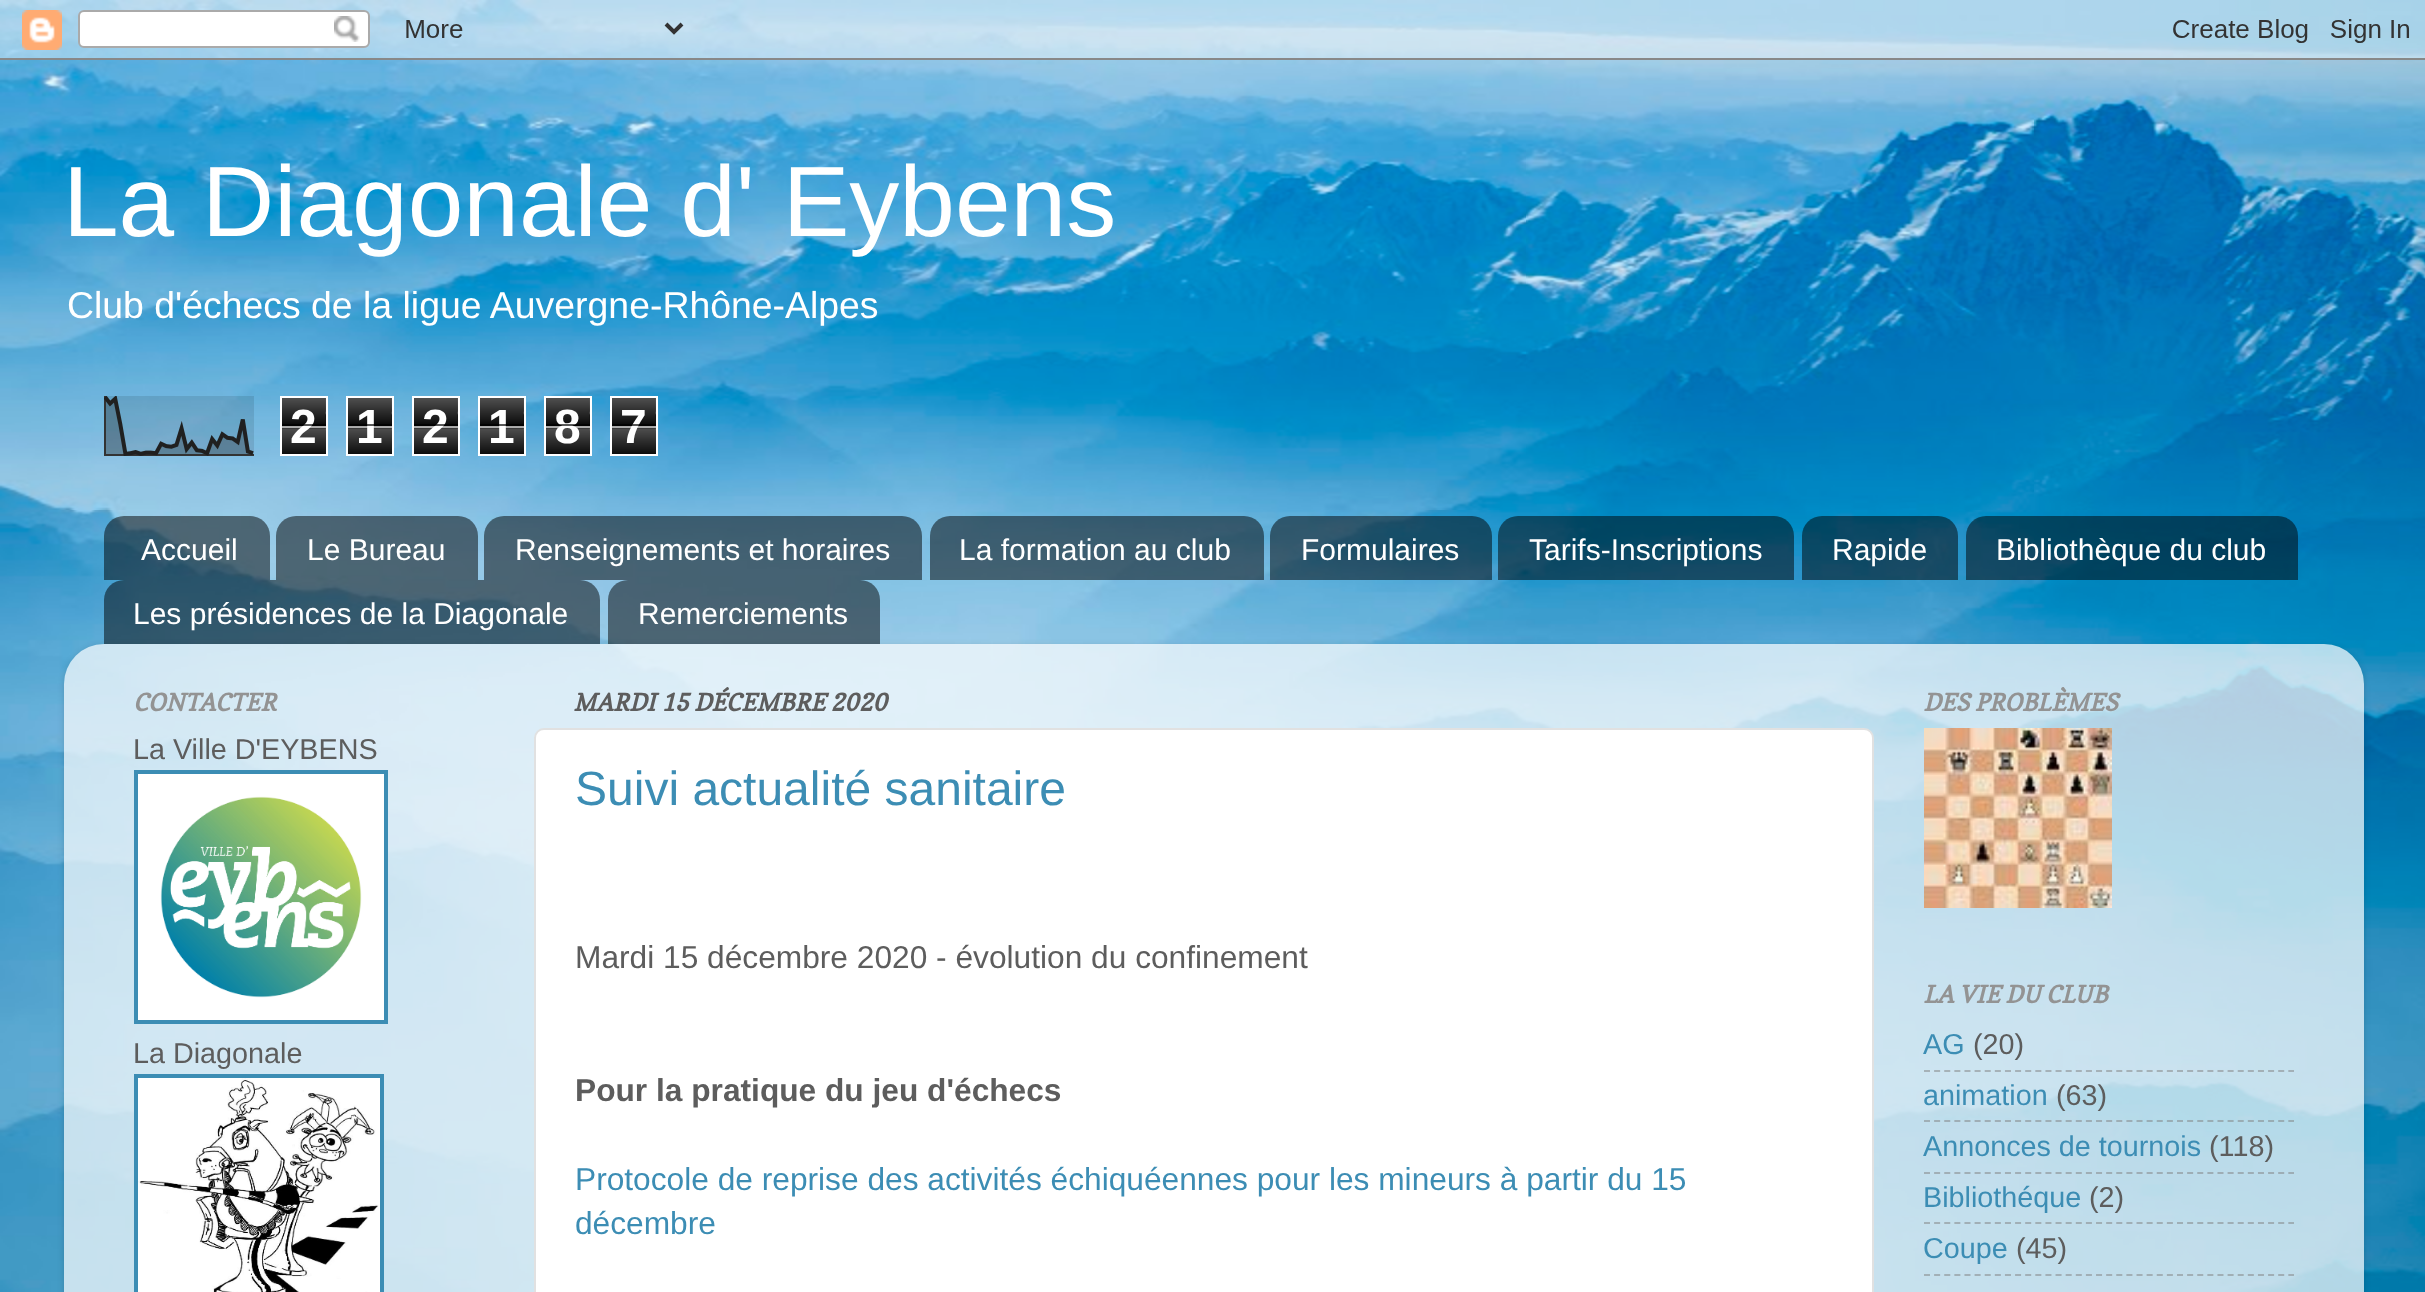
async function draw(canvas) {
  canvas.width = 2425;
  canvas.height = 1292;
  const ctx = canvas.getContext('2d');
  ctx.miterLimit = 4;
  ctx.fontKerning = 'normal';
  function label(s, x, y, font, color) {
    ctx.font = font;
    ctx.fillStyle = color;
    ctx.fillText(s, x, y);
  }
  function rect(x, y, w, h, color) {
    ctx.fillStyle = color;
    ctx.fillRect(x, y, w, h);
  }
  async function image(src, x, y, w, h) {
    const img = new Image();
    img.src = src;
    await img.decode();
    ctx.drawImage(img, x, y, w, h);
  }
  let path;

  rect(0, 0, 2425, 1292, '#fff');
  await image('assets/img1.png', 0, 0, 2425, 1292);
  await image('assets/img2.png', 0, 0, 2425, 60);
  label('La Diagonale d\' Eybens', 63, 236, '100px Liberation Sans', '#fff');
  label('Club d\'échecs de la ligue Auvergne-Rhône-Alpes', 67, 318, '37.4px Liberation Sans', '#fff');
  await image('assets/img3.png', 104, 396, 150, 60);
  await image('assets/img4.png', 282, 398, 44, 56);
  ctx.strokeStyle = '#fff';
  ctx.lineWidth = 2;
  ctx.strokeRect(281, 397, 46, 58);
  label('2', 290, 443, 'bold 48px Liberation Sans', '#fff');
  rect(282, 424, 44, 2, '#000000a6');
  rect(282, 426, 44, 2, '#ffffffa6');
  await image('assets/img4.png', 348, 398, 44, 56);
  ctx.strokeRect(347, 397, 46, 58);
  label('1', 356, 443, 'bold 48px Liberation Sans', '#fff');
  rect(348, 424, 44, 2, '#000000a6');
  rect(348, 426, 44, 2, '#ffffffa6');
  await image('assets/img4.png', 414, 398, 44, 56);
  ctx.strokeRect(413, 397, 46, 58);
  label('2', 422, 443, 'bold 48px Liberation Sans', '#fff');
  rect(414, 424, 44, 2, '#000000a6');
  rect(414, 426, 44, 2, '#ffffffa6');
  await image('assets/img4.png', 480, 398, 44, 56);
  ctx.strokeRect(479, 397, 46, 58);
  label('1', 488, 443, 'bold 48px Liberation Sans', '#fff');
  rect(480, 424, 44, 2, '#000000a6');
  rect(480, 426, 44, 2, '#ffffffa6');
  await image('assets/img4.png', 546, 398, 44, 56);
  ctx.strokeRect(545, 397, 46, 58);
  label('8', 554, 443, 'bold 48px Liberation Sans', '#fff');
  rect(546, 424, 44, 2, '#000000a6');
  rect(546, 426, 44, 2, '#ffffffa6');
  await image('assets/img4.png', 612, 398, 44, 56);
  ctx.strokeRect(611, 397, 46, 58);
  label('7', 620, 443, 'bold 48px Liberation Sans', '#fff');
  rect(612, 424, 44, 2, '#000000a6');
  rect(612, 426, 44, 2, '#ffffffa6');
  await image('assets/img5.png', 104, 516, 166, 64);
  label('Accueil', 141, 560, '30px Liberation Sans', '#fff');
  await image('assets/img6.png', 276, 516, 202, 64);
  label('Le Bureau', 307, 560, '30px Liberation Sans', '#fff');
  await image('assets/img7.png', 484, 516, 438, 64);
  label('Renseignements et horaires', 515, 560, '30px Liberation Sans', '#fff');
  await image('assets/img8.png', 930, 516, 334, 64);
  label('La formation au club', 959, 560, '30px Liberation Sans', '#fff');
  await image('assets/img9.png', 1270, 516, 222, 64);
  label('Formulaires', 1301, 560, '30px Liberation Sans', '#fff');
  await image('assets/img10.png', 1498, 516, 296, 64);
  label('Tarifs-Inscriptions', 1529, 560, '30px Liberation Sans', '#fff');
  await image('assets/img11.png', 1802, 516, 156, 64);
  label('Rapide', 1832, 560, '30px Liberation Sans', '#fff');
  await image('assets/img12.png', 1966, 516, 332, 64);
  label('Bibliothèque du club', 1996, 560, '30px Liberation Sans', '#fff');
  await image('assets/img13.png', 104, 580, 496, 64);
  label('Les présidences de la Diagonale', 133, 624, '30px Liberation Sans', '#fff');
  await image('assets/img14.png', 608, 580, 272, 64);
  label('Remerciements', 638, 624, '30px Liberation Sans', '#fff');
  ctx.save();
  path = new Path2D('M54 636H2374V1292H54ZM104 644H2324C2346 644 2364 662 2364 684V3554H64V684C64 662 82 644 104 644Z');
  ctx.clip(path, 'evenodd');
  ctx.fillStyle = '#00000026';
  ctx.filter = 'blur(3px)';
  ctx.beginPath();
  ctx.roundRect(64, 646, 2300, 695, 40);
  ctx.fill();
  ctx.filter = 'none';
  ctx.restore();
  await image('assets/img15.png', 64, 644, 2300, 648);
  label('CONTACTER', 133, 711, 'italic bold 24px Copse', '#939393');
  label('La Ville D\'EYBENS', 133, 759, '28.75px Liberation Sans', '#5d5d5d');
  ctx.strokeStyle = '#3c8db4';
  ctx.lineWidth = 4;
  ctx.strokeRect(136, 772, 250, 250);
  await image('assets/img16.png', 138, 774, 246, 246);
  label('La Diagonale', 133, 1063, '28.75px Liberation Sans', '#5d5d5d');
  ctx.strokeRect(136, 1076, 246, 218);
  await image('assets/img17.png', 138, 1078, 242, 214);
  label('MARDI 15 DÉCEMBRE 2020', 573, 711, 'italic bold 24px Copse', '#5d5d5d');
  ctx.fillStyle = '#fff';
  ctx.beginPath();
  ctx.roundRect(535, 729, 1338, 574, 9);
  ctx.fill();
  ctx.strokeStyle = '#e1e1e1';
  ctx.lineWidth = 2;
  ctx.stroke();
  label('Suivi actualité sanitaire', 575, 805, '48px Liberation Sans', '#3c8db4');
  label('Mardi 15 décembre 2020 - évolution du confinement', 575, 968, '31.7px Liberation Sans', '#5d5d5d');
  label('Pour la pratique du jeu d\'échecs', 575, 1101, 'bold 31.7px Liberation Sans', '#5d5d5d');
  label('Protocole de reprise des activités échiquéennes pour les mineurs à partir du 15', 575, 1190, '31.7px Liberation Sans', '#3c8db4');
  label('décembre', 575, 1234, '31.7px Liberation Sans', '#3c8db4');
  label('DES PROBLÈMES', 1923, 711, 'italic bold 24px Copse', '#939393');
  await image('assets/img18.png', 1924, 728, 188, 180);
  label('LA VIE DU CLUB', 1923, 1003, 'italic bold 24px Copse', '#939393');
  label('AG', 1923, 1054, '28.75px Liberation Sans', '#3c8db4');
  label('(20)', 1973, 1054, '28.75px Liberation Sans', '#5d5d5d');
  path = new Path2D('M1924 1071H2294');
  ctx.strokeStyle = '#80808080';
  ctx.setLineDash([6, 4.12]);
  ctx.stroke(path);
  label('animation', 1923, 1105, '28.75px Liberation Sans', '#3c8db4');
  label('(63)', 2056, 1105, '28.75px Liberation Sans', '#5d5d5d');
  path = new Path2D('M1924 1121H2294');
  ctx.stroke(path);
  label('Annonces de tournois', 1923, 1156, '28.75px Liberation Sans', '#3c8db4');
  label('(118)', 2209, 1156, '28.75px Liberation Sans', '#5d5d5d');
  path = new Path2D('M1924 1173H2294');
  ctx.stroke(path);
  label('Bibliothéque', 1923, 1207, '28.75px Liberation Sans', '#3c8db4');
  label('(2)', 2089, 1207, '28.75px Liberation Sans', '#5d5d5d');
  path = new Path2D('M1924 1223H2294');
  ctx.stroke(path);
  label('Coupe', 1923, 1258, '28.75px Liberation Sans', '#3c8db4');
  label('(45)', 2016, 1258, '28.75px Liberation Sans', '#5d5d5d');
  path = new Path2D('M1924 1275H2294');
  ctx.stroke(path);
}

draw(document.querySelector('canvas'));
